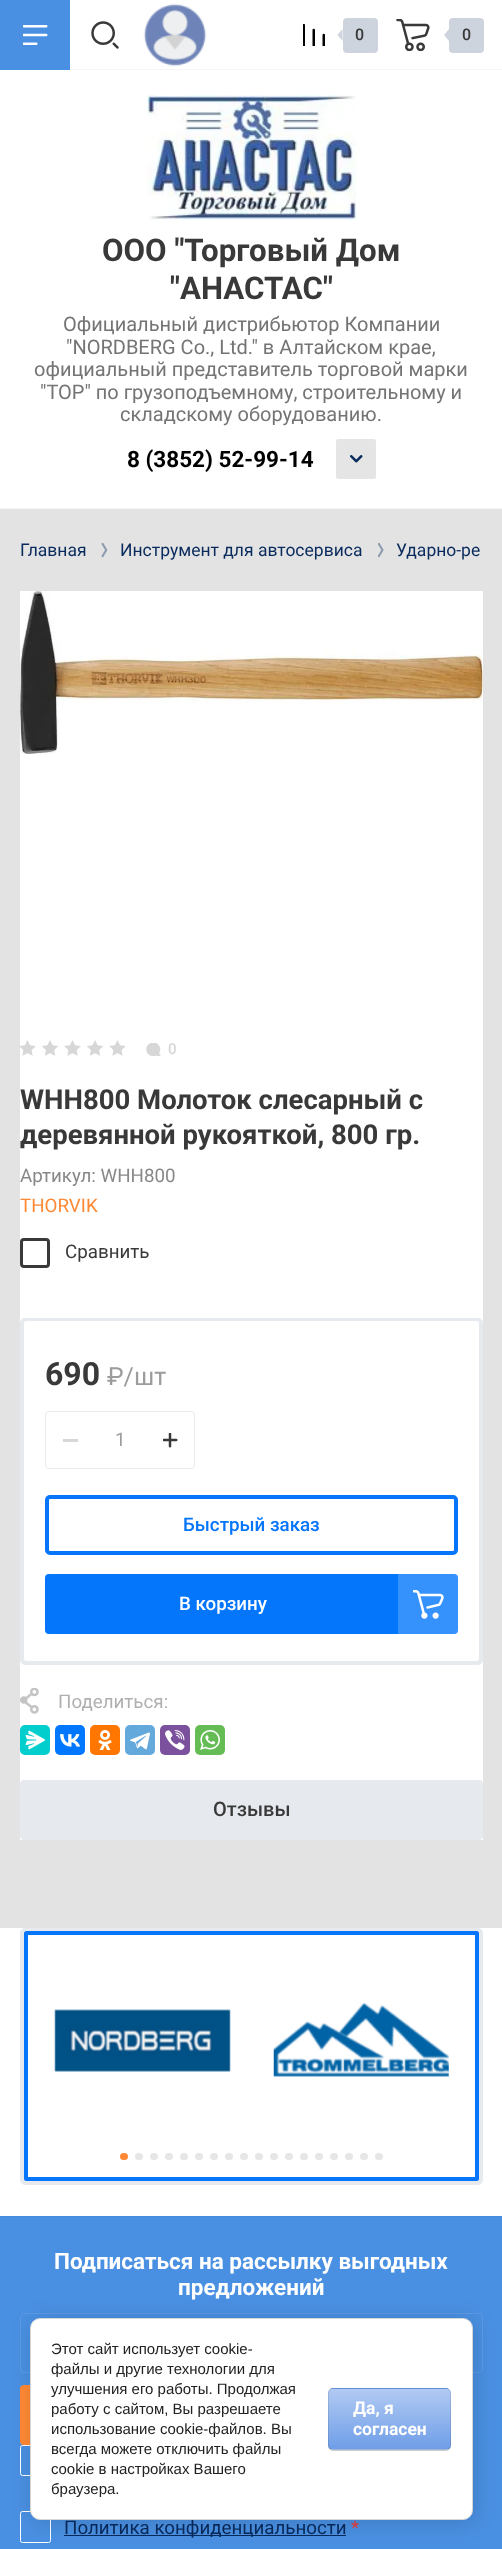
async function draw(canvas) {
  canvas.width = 502;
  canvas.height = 2549;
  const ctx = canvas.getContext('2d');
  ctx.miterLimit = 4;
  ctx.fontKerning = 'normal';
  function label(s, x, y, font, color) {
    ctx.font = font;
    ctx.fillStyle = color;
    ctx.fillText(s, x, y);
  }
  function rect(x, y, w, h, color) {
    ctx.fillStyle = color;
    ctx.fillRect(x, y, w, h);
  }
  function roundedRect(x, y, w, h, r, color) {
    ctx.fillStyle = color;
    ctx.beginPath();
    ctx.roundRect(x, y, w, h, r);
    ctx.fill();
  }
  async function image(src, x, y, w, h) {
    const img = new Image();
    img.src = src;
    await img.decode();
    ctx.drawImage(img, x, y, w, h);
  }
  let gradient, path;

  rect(0, 0, 502, 2549, '#e3e3e3');
  rect(0, 0, 502, 508, '#fff');
  rect(0, 508, 502, 1, '#f5f5f5');
  rect(70, 69, 432, 1, '#f5f5f5');
  rect(0, 0, 70, 70, '#4a90e2');
  await image('assets/img1.png', 23, 25, 25, 20);
  await image('assets/img2.png', 91, 21, 28, 28);
  await image('assets/img3.png', 143, 3, 64, 64);
  await image('assets/img4.png', 303, 24, 22, 22);
  roundedRect(343, 18, 35, 35, 4, '#ced4de');
  path = new Path2D('M342.5 29V41L337.5 35Z');
  ctx.fill(path);
  label('0', 355, 40, '500 16px Roboto', '#393939');
  await image('assets/img5.png', 396, 19, 34, 32);
  roundedRect(449, 18, 35, 35, 4, '#ced4de');
  path = new Path2D('M449 29V41L444 35Z');
  ctx.fill(path);
  label('0', 462, 40, '500 16px Roboto', '#393939');
  await image('assets/img6.png', 147, 95, 210, 125);
  label('ООО "Торговый Дом', 102, 261, 'bold 31.25px Roboto', '#393939');
  label('"АНАСТАС"', 170, 299, 'bold 31.25px Roboto', '#393939');
  label('Официальный дистрибьютор Компании', 63, 331, '20px Roboto', '#747474');
  label('"NORDBERG Co., Ltd." в Алтайском крае,', 66, 354, '20px Roboto', '#747474');
  label('официальный представитель торговой марки', 34, 376, '20px Roboto', '#747474');
  label('"ТОР" по грузоподъемному, строительному и', 40, 399, '20px Roboto', '#747474');
  label('складскому оборудованию.', 120, 421, '20px Roboto', '#747474');
  label('8 (3852) 52-99-14', 127, 467, 'bold 22.5px Roboto', '#000');
  roundedRect(336, 439, 40, 40, 2.5, '#e5e5e5');
  await image('assets/img7.png', 350, 455, 13, 8);
  label('Главная', 20, 556, '17.5px Roboto', '#082a5c');
  await image('assets/img8.png', 101, 543, 7, 15);
  label('Инструмент для автосервиса', 120, 556, '17.5px Roboto', '#082a5c');
  await image('assets/img9.png', 378, 543, 6, 15);
  label('Ударно-ре', 396, 556, '17.5px Roboto', '#082a5c');
  rect(20, 591, 463, 1249, '#fff');
  await image('assets/img10.png', 20, 591, 463, 163);
  await image('assets/img11.png', 19, 1040, 107, 16);
  await image('assets/img12.png', 146, 1043, 15, 13);
  label('0', 168, 1054, '500 15px Roboto', '#d7d7d7');
  label('WHH800 Молоток слесарный с', 20, 1109, 'bold 27.5px Roboto', '#393939');
  label('деревянной рукояткой, 800 гр.', 20, 1144, 'bold 27.5px Roboto', '#393939');
  label('Артикул: WHH800', 20, 1182, '18.75px Roboto', '#888');
  label('THORVIK', 20, 1212, '18.75px Roboto', '#fe8934');
  ctx.beginPath();
  ctx.roundRect(21.5, 1239.5, 27, 27, 2.5);
  ctx.strokeStyle = '#393939';
  ctx.lineWidth = 3;
  ctx.stroke();
  label('Сравнить', 65, 1258, '18.75px Roboto', '#393939');
  ctx.beginPath();
  ctx.roundRect(45.5, 1411.5, 149, 57, 3.5);
  ctx.strokeStyle = '#ebebeb';
  ctx.lineWidth = 1;
  ctx.stroke();
  rect(63, 1439, 15, 3, '#d7d7d7');
  await image('assets/img13.png', 163, 1433, 15, 15);
  ctx.beginPath();
  ctx.roundRect(22.5, 1320.5, 458, 342, 2.5);
  ctx.strokeStyle = '#e6eaef';
  ctx.lineWidth = 5;
  ctx.stroke();
  ctx.beginPath();
  ctx.roundRect(26, 1323, 451, 336, 0.5);
  ctx.strokeStyle = '#fff';
  ctx.lineWidth = 4;
  ctx.stroke();
  label('690', 45, 1385, 'bold 32px Roboto', '#393939');
  label('₽/шт', 107, 1385, '25px Roboto', '#9c9c9c');
  label('1', 115, 1446, '18.75px Roboto', '#9c9c9c');
  ctx.beginPath();
  ctx.roundRect(47, 1497, 409, 56, 3);
  ctx.strokeStyle = '#0575fc';
  ctx.stroke();
  label('Быстрый заказ', 183, 1531, '500 18.75px Roboto', '#0575fc');
  roundedRect(45, 1574, 413, 60, 4, '#0376fc');
  label('В корзину', 179, 1610, '500 18.75px Roboto', '#fff');
  ctx.fillStyle = '#ffffff33';
  ctx.beginPath();
  ctx.roundRect(398, 1574, 60, 60, [0, 4, 4, 0]);
  ctx.fill();
  await image('assets/img14.png', 413, 1590, 31, 29);
  await image('assets/img15.png', 20, 1688, 19, 26);
  label('Поделиться:', 58, 1708, '18.75px Roboto', '#b0b0b0');
  roundedRect(20, 1725, 30, 30, 5, '#03cece');
  await image('assets/img16.png', 25, 1730, 20, 20);
  roundedRect(55, 1725, 30, 30, 5, '#07f');
  await image('assets/img17.png', 60, 1734, 20, 13);
  roundedRect(90, 1725, 30, 30, 5, '#f70');
  await image('assets/img18.png', 98, 1730, 14, 20);
  roundedRect(125, 1725, 30, 30, 5, '#64a9dc');
  await image('assets/img19.png', 130, 1732, 20, 18);
  roundedRect(160, 1725, 30, 30, 5, '#7b519d');
  await image('assets/img20.png', 165, 1730, 20, 20);
  roundedRect(195, 1725, 30, 30, 5, '#65bc54');
  await image('assets/img21.png', 200, 1730, 20, 20);
  roundedRect(20, 1780, 463, 60, 4, '#e6eaef');
  label('Отзывы', 213, 1816, '500 20px Roboto', '#393939');
  rect(0, 1928, 502, 288, '#fff');
  ctx.beginPath();
  ctx.roundRect(22.5, 1930.5, 458, 252, 2.5);
  ctx.strokeStyle = '#e6eaef';
  ctx.lineWidth = 5;
  ctx.stroke();
  await image('assets/img22.png', 54, 2009, 177, 63);
  await image('assets/img23.png', 273, 2003, 176, 74);
  roundedRect(120, 2153, 8, 7, 3.5, '#fe8934');
  roundedRect(135, 2153, 8, 7, 3.5, '#e6e6e6');
  roundedRect(150, 2153, 8, 7, 3.5, '#e6e6e6');
  roundedRect(165, 2153, 8, 7, 3.5, '#e6e6e6');
  roundedRect(180, 2153, 8, 7, 3.5, '#e6e6e6');
  roundedRect(195, 2153, 8, 7, 3.5, '#e6e6e6');
  roundedRect(210, 2153, 8, 7, 3.5, '#e6e6e6');
  roundedRect(225, 2153, 8, 7, 3.5, '#e6e6e6');
  roundedRect(240, 2153, 8, 7, 3.5, '#e6e6e6');
  roundedRect(255, 2153, 8, 7, 3.5, '#e6e6e6');
  roundedRect(270, 2153, 8, 7, 3.5, '#e6e6e6');
  roundedRect(285, 2153, 8, 7, 3.5, '#e6e6e6');
  roundedRect(300, 2153, 8, 7, 3.5, '#e6e6e6');
  roundedRect(315, 2153, 8, 7, 3.5, '#e6e6e6');
  roundedRect(330, 2153, 8, 7, 3.5, '#e6e6e6');
  roundedRect(345, 2153, 8, 7, 3.5, '#e6e6e6');
  roundedRect(360, 2153, 8, 7, 3.5, '#e6e6e6');
  roundedRect(375, 2153, 8, 7, 3.5, '#e6e6e6');
  ctx.beginPath();
  ctx.roundRect(26, 1933, 451, 246, 0.5);
  ctx.strokeStyle = '#0575fc';
  ctx.lineWidth = 4;
  ctx.stroke();
  rect(0, 2217, 502, 332, '#4a90e2');
  rect(0, 2216, 502, 1, '#478ad9');
  label('Подписаться на рассылку выгодных', 54, 2269, 'bold 22.5px Roboto', '#fff');
  label('предложений', 178, 2295, 'bold 22.5px Roboto', '#fff');
  ctx.beginPath();
  ctx.roundRect(20.5, 2313.5, 462, 59, 3.5);
  ctx.strokeStyle = '#5c9be5';
  ctx.lineWidth = 1;
  ctx.stroke();
  roundedRect(20, 2385, 246, 60, 4, '#fe8934');
  ctx.beginPath();
  ctx.roundRect(20.5, 2445.5, 30, 30, 2);
  ctx.strokeStyle = '#fff';
  ctx.stroke();
  ctx.beginPath();
  ctx.roundRect(20.5, 2511.5, 30, 31, 2);
  ctx.stroke();
  rect(64, 2535, 282, 1, '#082a5c');
  label('Политика конфиденциальности', 64, 2534, '18.75px Roboto', '#082a5c');
  label('*', 351, 2534, '18.75px Roboto', '#eb3c3c');
  ctx.fillStyle = '#00000024';
  ctx.filter = 'blur(11px)';
  ctx.beginPath();
  ctx.roundRect(33, 2320, 442, 203, 10);
  ctx.fill();
  ctx.filter = 'none';
  ctx.fillStyle = '#fff';
  ctx.beginPath();
  ctx.roundRect(30.5, 2318.5, 442, 201, 9.5);
  ctx.fill();
  ctx.strokeStyle = '#d6d6d6';
  ctx.stroke();
  label('Этот сайт использует cookie-', 51, 2354, '15px Liberation Sans', '#212121');
  label('файлы и другие технологии для', 51, 2374, '15px Liberation Sans', '#212121');
  label('улучшения его работы. Продолжая', 51, 2394, '15px Liberation Sans', '#212121');
  label('работу с сайтом, Вы разрешаете', 51, 2414, '15px Liberation Sans', '#212121');
  label('использование cookie-файлов. Вы', 51, 2434, '15px Liberation Sans', '#212121');
  label('всегда можете отключить файлы', 51, 2454, '15px Liberation Sans', '#212121');
  label('cookie в настройках Вашего', 51, 2474, '15px Liberation Sans', '#212121');
  label('браузера.', 51, 2494, '15px Liberation Sans', '#212121');
  ctx.fillStyle = '#00000033';
  ctx.filter = 'blur(0.5px)';
  ctx.beginPath();
  ctx.roundRect(328, 2389, 123, 62, 5);
  ctx.fill();
  ctx.filter = 'none';
  ctx.save();
  ctx.beginPath();
  ctx.roundRect(328, 2388, 123, 62, 5);
  ctx.clip();
  gradient = ctx.createLinearGradient(389, 2329, 389, 2389);
  gradient.addColorStop(0, '#b1caf3');
  gradient.addColorStop(1, '#6f9ee8');
  ctx.fillStyle = gradient;
  ctx.fillRect(328, 2388, 123, 1);
  gradient = ctx.createLinearGradient(389, 2389, 389, 2449);
  gradient.addColorStop(0, '#b1caf3');
  gradient.addColorStop(1, '#6f9ee8');
  ctx.fillStyle = gradient;
  ctx.fillRect(328, 2389, 123, 60);
  gradient = ctx.createLinearGradient(389, 2449, 389, 2509);
  gradient.addColorStop(0, '#b1caf3');
  gradient.addColorStop(1, '#6f9ee8');
  ctx.fillStyle = gradient;
  ctx.fillRect(328, 2449, 123, 1);
  ctx.restore();
  ctx.beginPath();
  ctx.roundRect(328.5, 2388.5, 122, 61, 4.5);
  ctx.strokeStyle = '#0000001a';
  ctx.stroke();
  label('Да, я', 353, 2414, 'bold 17.5px Roboto', '#fff');
  label('согласен', 353, 2435, 'bold 17.5px Roboto', '#fff');
}

draw(document.querySelector('canvas'));
